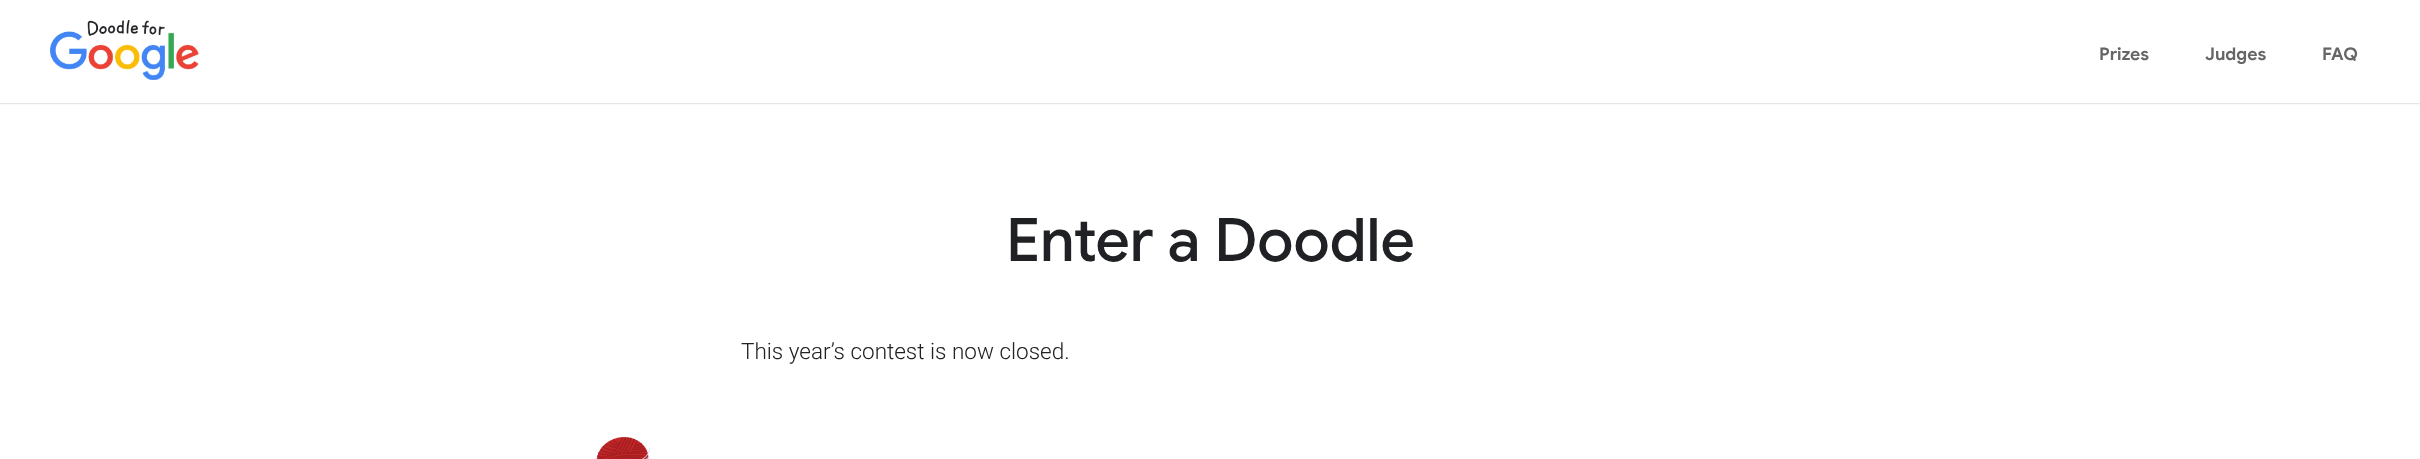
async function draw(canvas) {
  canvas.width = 2420;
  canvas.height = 459;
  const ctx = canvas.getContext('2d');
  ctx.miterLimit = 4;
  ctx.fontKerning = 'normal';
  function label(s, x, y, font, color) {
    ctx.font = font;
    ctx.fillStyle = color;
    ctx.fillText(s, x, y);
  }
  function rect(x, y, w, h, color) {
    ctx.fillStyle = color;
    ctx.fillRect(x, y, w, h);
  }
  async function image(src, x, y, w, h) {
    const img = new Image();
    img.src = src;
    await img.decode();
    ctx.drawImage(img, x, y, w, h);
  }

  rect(0, 0, 2420, 459, '#fff');
  await image('assets/img1.png', 596, 437, 54, 22);
  ctx.fillStyle = '#0000004d';
  ctx.filter = 'blur(1px)';
  ctx.beginPath();
  ctx.rect(0, 0, 2420, 103);
  ctx.fill();
  ctx.filter = 'none';
  rect(0, 0, 2420, 103, '#fff');
  await image('assets/img2.png', 50, 20, 149, 60);
  label('Prizes', 2099, 60, 'bold 17.5px Google Sans', '#666');
  label('Judges', 2205, 60, 'bold 17.5px Google Sans', '#666');
  label('FAQ', 2322, 60, 'bold 17.5px Google Sans', '#666');
  label('Enter a Doodle', 1006, 261, '500 60px Google Sans', '#202124');
  label('This year’s contest is now closed.', 741, 359, '300 22.5px Roboto', '#202124');
}

draw(document.querySelector('canvas'));
